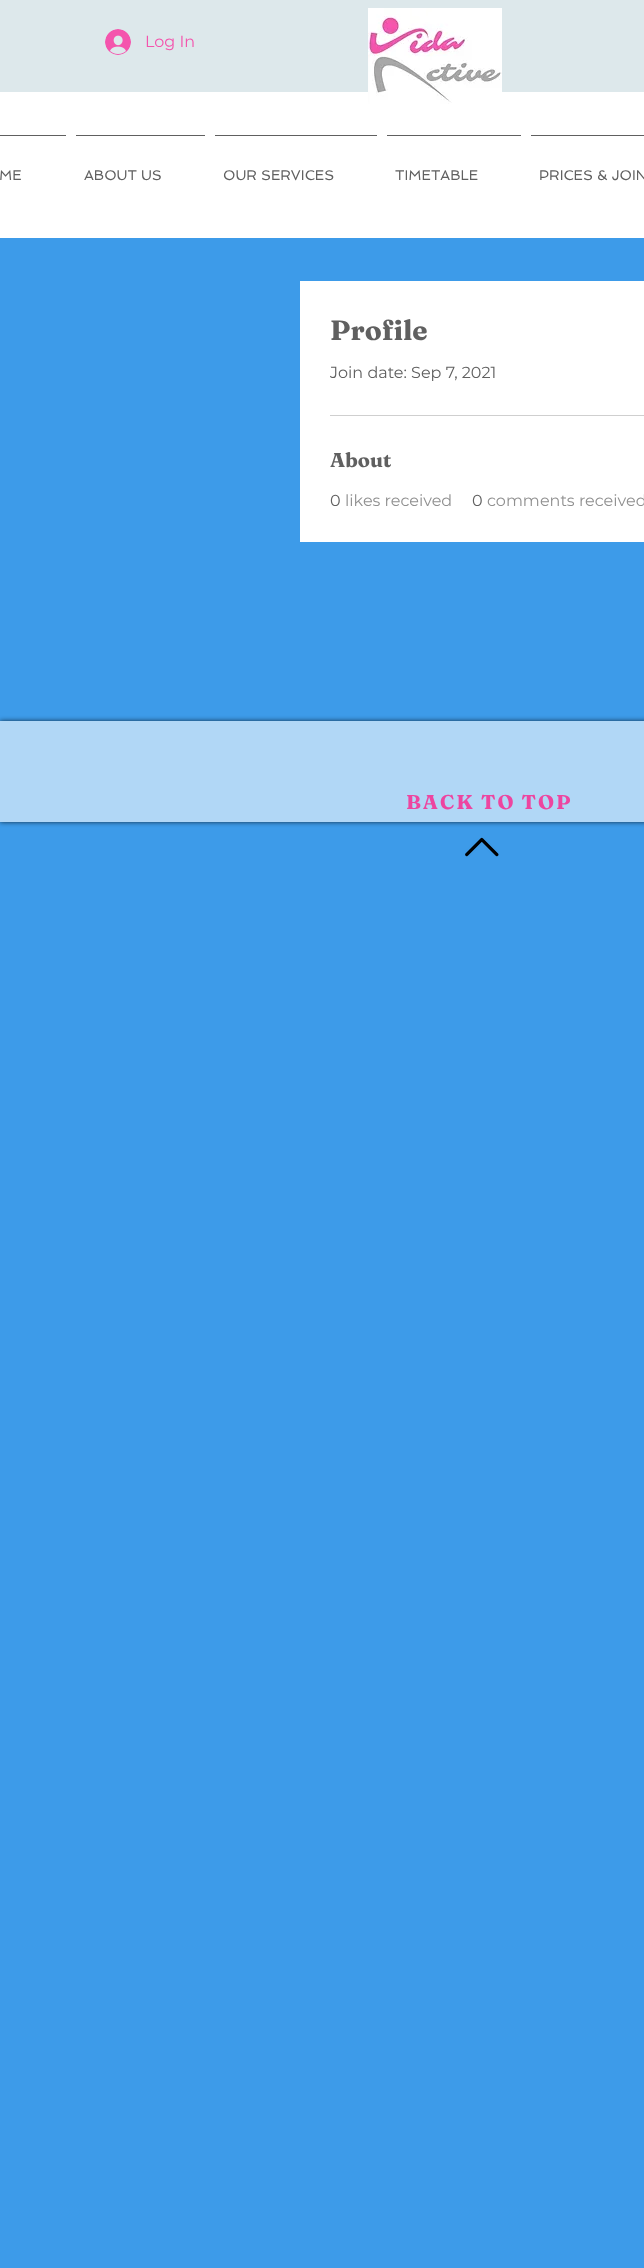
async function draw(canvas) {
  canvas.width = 644;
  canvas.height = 2268;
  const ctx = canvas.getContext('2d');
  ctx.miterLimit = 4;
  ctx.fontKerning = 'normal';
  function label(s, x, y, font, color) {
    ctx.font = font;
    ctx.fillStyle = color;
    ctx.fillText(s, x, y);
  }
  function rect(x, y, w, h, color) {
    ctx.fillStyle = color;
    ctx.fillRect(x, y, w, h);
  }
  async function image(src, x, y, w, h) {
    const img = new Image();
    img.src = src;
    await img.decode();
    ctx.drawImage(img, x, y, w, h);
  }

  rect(0, 0, 644, 2268, '#3d9be9');
  rect(0, 0, 644, 92, '#dde8eb');
  await image('assets/img1.png', 105, 29, 26, 26);
  label('Log In', 145, 47, '16px Montserrat', '#f454ad');
  rect(0, 92, 644, 146, '#fff');
  await image('assets/img2.png', 368, 8, 134, 96);
  rect(0, 135, 66, 1, '#606060');
  label('ME', -1, 180, '14px Spinnaker', '#606060');
  rect(76, 135, 129, 1, '#606060');
  label('ABOUT US', 84, 180, '14px Spinnaker', '#606060');
  rect(215, 135, 162, 1, '#606060');
  label('OUR SERVICES', 223, 180, '14px Spinnaker', '#606060');
  rect(387, 135, 134, 1, '#606060');
  label('TIMETABLE', 395, 180, '14px Spinnaker', '#606060');
  rect(531, 135, 113, 1, '#606060');
  label('PRICES & JOIN', 539, 180, '14px Spinnaker', '#606060');
  rect(300, 281, 344, 261, '#fff');
  label('Profile', 330, 340, 'bold 28px Fraunces', '#606060');
  label('Join date: Sep 7, 2021', 330, 378, '16px Montserrat', '#606060');
  rect(330, 415, 314, 1, '#cfcfcf');
  label('About', 330, 467, 'bold 20px Fraunces', '#606060');
  label('0', 330, 506, '16px Montserrat', '#606060');
  label('likes received', 345, 506, '16px Montserrat', '#909090');
  label('0', 472, 506, '16px Montserrat', '#606060');
  label('comments received', 487, 506, '16px Montserrat', '#909090');
  ctx.fillStyle = '#000000b3';
  ctx.filter = 'blur(2.5px)';
  ctx.beginPath();
  ctx.rect(0, 721, 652, 101);
  ctx.fill();
  ctx.filter = 'none';
  rect(0, 721, 644, 101, '#b1d7f6');
  ctx.letterSpacing = '2px';
  label('BACK TO TOP', 406, 809, 'bold 20px Fraunces', '#ed45a0');
  await image('assets/img3.png', 465, 837, 34, 20);
}

draw(document.querySelector('canvas'));
